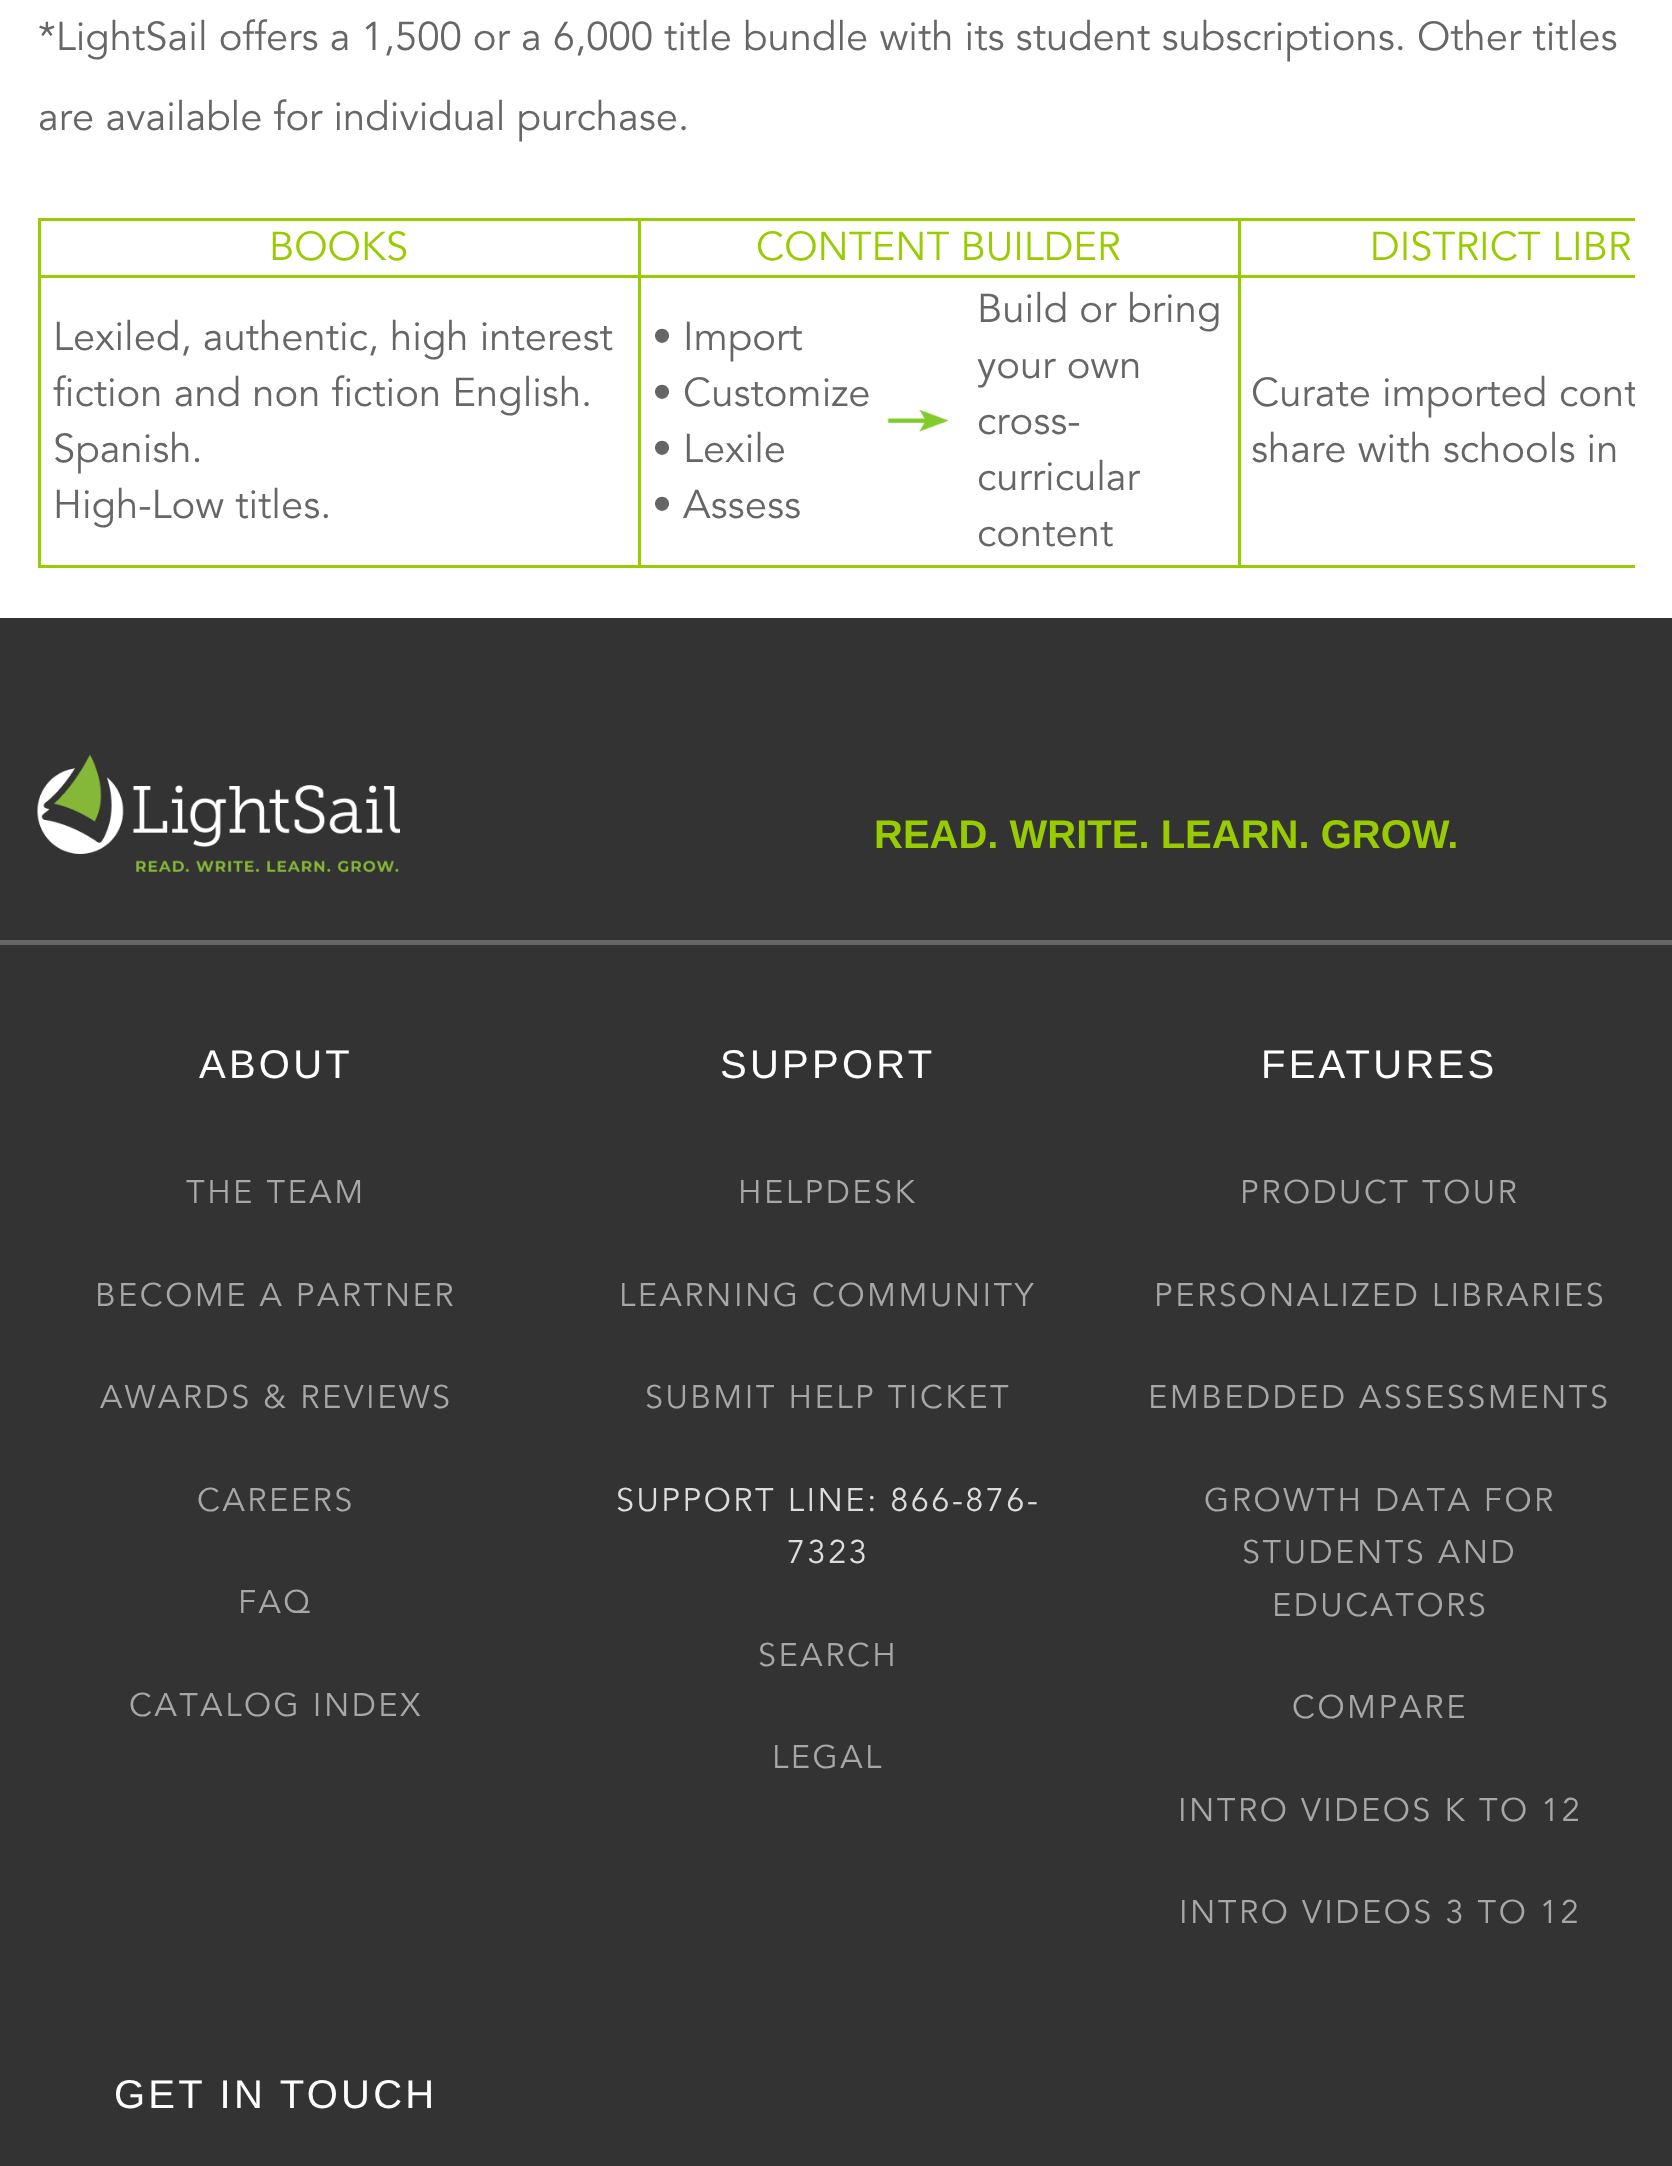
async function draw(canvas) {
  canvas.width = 1672;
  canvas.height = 2166;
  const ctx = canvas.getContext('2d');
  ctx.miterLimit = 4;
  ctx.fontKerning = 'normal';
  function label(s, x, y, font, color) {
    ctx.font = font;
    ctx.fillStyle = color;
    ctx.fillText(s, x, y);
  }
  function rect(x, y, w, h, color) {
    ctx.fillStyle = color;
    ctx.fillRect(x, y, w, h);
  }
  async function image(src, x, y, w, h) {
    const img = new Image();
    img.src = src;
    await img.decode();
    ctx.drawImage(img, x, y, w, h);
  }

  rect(0, 0, 1672, 2166, '#fff');
  label('*LightSail offers a 1,500 or a 6,000 title bundle with its student subscriptions. Other titles', 38, 50, '40px Avenir Next', '#666');
  label('are available for individual purchase.', 38, 130, '40px Avenir Next', '#666');
  rect(1238, 218, 397, 3, '#9c0');
  rect(1238, 275, 397, 3, '#9c0');
  rect(1238, 565, 397, 3, '#9c0');
  rect(1238, 275, 3, 293, '#9c0');
  rect(638, 275, 602, 3, '#9c0');
  rect(1238, 218, 3, 60, '#9c0');
  rect(638, 218, 602, 3, '#9c0');
  rect(638, 565, 602, 3, '#9c0');
  rect(638, 275, 3, 293, '#9c0');
  rect(38, 275, 602, 3, '#9c0');
  rect(638, 218, 3, 60, '#9c0');
  rect(38, 218, 602, 3, '#9c0');
  rect(38, 565, 602, 3, '#9c0');
  rect(38, 275, 3, 293, '#9c0');
  rect(38, 218, 3, 60, '#9c0');
  label('BOOKS', 269, 260, '40px Avenir Next', '#9c0');
  label('CONTENT BUILDER', 756, 260, '40px Avenir Next', '#9c0');
  label('DISTRICT LIBR', 1370, 260, '40px Avenir Next', '#9c0');
  label('Lexiled, authentic, high interest', 53, 350, '40px Avenir Next', '#666');
  label('fiction and non fiction English.', 53, 406, '40px Avenir Next', '#666');
  label('Spanish.', 53, 462, '40px Avenir Next', '#666');
  label('High-Low titles.', 53, 518, '40px Avenir Next', '#666');
  label('• Import', 652, 350, '40px Avenir Next', '#666');
  label('• Customize', 652, 406, '40px Avenir Next', '#666');
  label('• Lexile', 652, 462, '40px Avenir Next', '#666');
  label('• Assess', 652, 518, '40px Avenir Next', '#666');
  await image('assets/img1.png', 886, 409, 63, 25);
  label('Build or bring', 977, 322, '40px Avenir Next', '#666');
  label('your own', 977, 378, '40px Avenir Next', '#666');
  label('cross-', 977, 434, '40px Avenir Next', '#666');
  label('curricular', 977, 490, '40px Avenir Next', '#666');
  label('content', 977, 546, '40px Avenir Next', '#666');
  label('Curate imported', 1251, 406, '40px Avenir Next', '#666');
  ctx.save();
  ctx.beginPath();
  ctx.rect(38, 218, 1597, 362);
  ctx.clip();
  label('cont', 1559, 406, '40px Avenir Next', '#666');
  ctx.restore();
  label('share with schools in', 1251, 462, '40px Avenir Next', '#666');
  rect(0, 618, 1672, 1548, '#333');
  rect(0, 940, 1672, 5, '#666');
  await image('assets/img2.png', 37, 754, 363, 119);
  label('READ. WRITE. LEARN. GROW.', 874, 848, 'bold 40px Liberation Sans', '#9c0');
  ctx.letterSpacing = '3.25px';
  label('ABOUT', 199, 1078, '40px Liberation Sans', '#fff');
  ctx.letterSpacing = '2.5px';
  label('THE TEAM', 186, 1203, '32.5px Avenir Next', '#a7a7a7');
  label('BECOME A PARTNER', 95, 1306, '32.5px Avenir Next', '#a7a7a7');
  label('AWARDS & REVIEWS', 100, 1408, '32.5px Avenir Next', '#a7a7a7');
  label('CAREERS', 197, 1511, '32.5px Avenir Next', '#a7a7a7');
  label('FAQ', 238, 1613, '32.5px Avenir Next', '#a7a7a7');
  label('CATALOG INDEX', 129, 1716, '32.5px Avenir Next', '#a7a7a7');
  ctx.letterSpacing = '3.25px';
  label('SUPPORT', 720, 1078, '40px Liberation Sans', '#fff');
  ctx.letterSpacing = '2.5px';
  label('HELPDESK', 738, 1203, '32.5px Avenir Next', '#a7a7a7');
  label('LEARNING COMMUNITY', 619, 1306, '32.5px Avenir Next', '#a7a7a7');
  label('SUBMIT HELP TICKET', 645, 1408, '32.5px Avenir Next', '#a7a7a7');
  label('SUPPORT LINE: 866-876-', 616, 1511, '32.5px Avenir Next', '#ddd');
  label('7323', 787, 1563, '32.5px Avenir Next', '#ddd');
  label('SEARCH', 758, 1666, '32.5px Avenir Next', '#a7a7a7');
  label('LEGAL', 772, 1768, '32.5px Avenir Next', '#a7a7a7');
  ctx.letterSpacing = '3.25px';
  label('FEATURES', 1261, 1078, '40px Liberation Sans', '#fff');
  ctx.letterSpacing = '2.5px';
  label('PRODUCT TOUR', 1240, 1203, '32.5px Avenir Next', '#a7a7a7');
  label('PERSONALIZED LIBRARIES', 1154, 1306, '32.5px Avenir Next', '#a7a7a7');
  label('EMBEDDED ASSESSMENTS', 1148, 1408, '32.5px Avenir Next', '#a7a7a7');
  label('GROWTH DATA FOR', 1204, 1511, '32.5px Avenir Next', '#a7a7a7');
  label('STUDENTS AND', 1242, 1563, '32.5px Avenir Next', '#a7a7a7');
  label('EDUCATORS', 1272, 1616, '32.5px Avenir Next', '#a7a7a7');
  label('COMPARE', 1292, 1718, '32.5px Avenir Next', '#a7a7a7');
  label('INTRO VIDEOS K TO 12', 1178, 1821, '32.5px Avenir Next', '#a7a7a7');
  label('INTRO VIDEOS 3 TO 12', 1179, 1923, '32.5px Avenir Next', '#a7a7a7');
  ctx.letterSpacing = '3.25px';
  label('GET IN TOUCH', 114, 2108, '40px Liberation Sans', '#fff');
}

draw(document.querySelector('canvas'));
